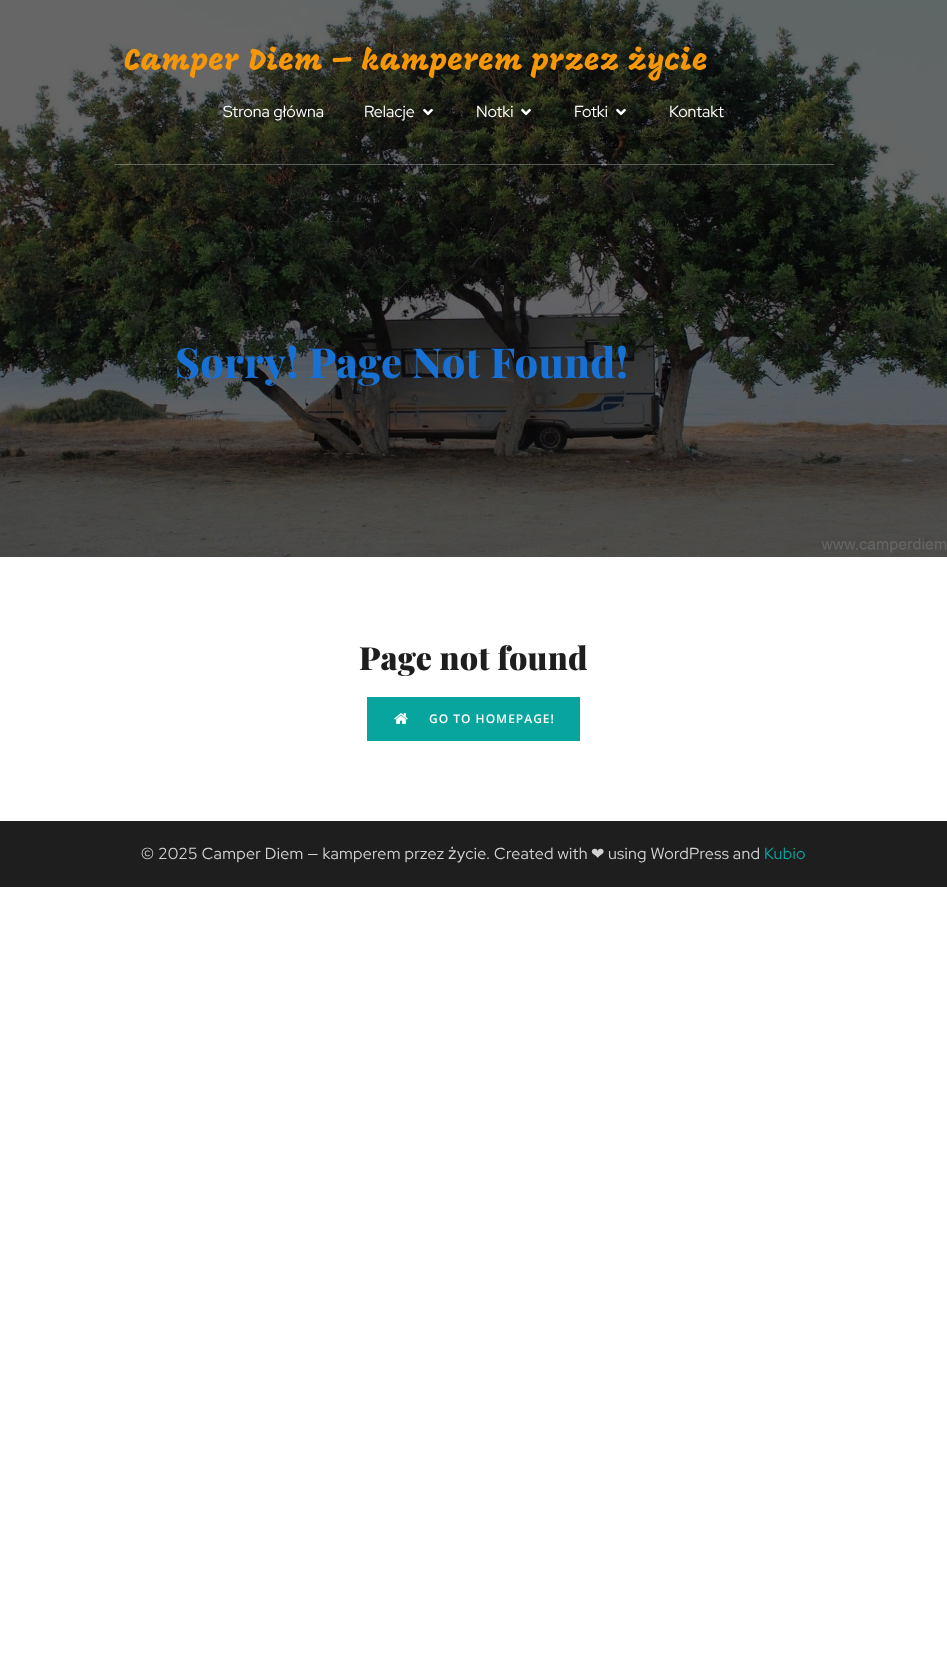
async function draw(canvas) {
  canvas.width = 947;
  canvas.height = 1671;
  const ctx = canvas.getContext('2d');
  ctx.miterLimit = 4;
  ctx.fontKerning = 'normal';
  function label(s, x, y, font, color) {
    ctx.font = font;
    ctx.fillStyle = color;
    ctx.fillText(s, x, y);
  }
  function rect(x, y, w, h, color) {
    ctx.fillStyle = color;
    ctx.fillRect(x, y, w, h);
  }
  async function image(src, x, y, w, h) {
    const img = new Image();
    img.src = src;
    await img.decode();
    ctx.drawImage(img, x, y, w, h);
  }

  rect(0, 0, 947, 1671, '#fff');
  await image('assets/img4.png', 0, 0, 947, 557);
  rect(114, 164, 720, 1, '#ffffff4d');
  ctx.letterSpacing = '0.3px';
  label('Camper Diem — kamperem przez życie', 124, 70, '30px Mogra', '#f59706');
  ctx.letterSpacing = '0px';
  label('Strona główna', 223, 117, '16px Red Hat Display', '#fff');
  label('Relacje', 364, 117, '16px Red Hat Display', '#fff');
  await image('assets/img1.png', 423, 108, 10, 8);
  label('Notki', 476, 117, '16px Red Hat Display', '#fff');
  await image('assets/img2.png', 521, 108, 10, 8);
  label('Fotki', 574, 117, '16px Red Hat Display', '#fff');
  await image('assets/img3.png', 616, 108, 10, 8);
  label('Kontakt', 669, 117, '16px Red Hat Display', '#fff');
  ctx.letterSpacing = '0.3px';
  label('Sorry! Page Not Found!', 175, 378, '800 41.6px Playfair Display', '#1770d4');
  label('Page not found', 359, 670, '900 32px Playfair Display', '#1e1e1e');
  rect(367, 697, 213, 44, '#07a59d');
  await image('assets/img5.png', 394, 713, 14, 11);
  ctx.letterSpacing = '1px';
  label('GO TO HOMEPAGE!', 429, 723, '600 12px Open Sans', '#fff');
  rect(0, 821, 947, 66, '#1e1e1e');
  ctx.letterSpacing = '0.3px';
  label('© 2025 Camper Diem — kamperem przez', 141, 859, '16px Red Hat Display', '#d2d2d2');
  label('ż', 448, 859, '16px DejaVu Sans', '#d2d2d2');
  label('ycie. Created with', 457, 859, '16px Red Hat Display', '#d2d2d2');
  label('❤', 591, 859, '16px DejaVu Sans', '#d2d2d2');
  label('using WordPress and', 608, 859, '16px Red Hat Display', '#d2d2d2');
  label('Kubio', 764, 859, '16px Red Hat Display', '#07a59d');
}

draw(document.querySelector('canvas'));
